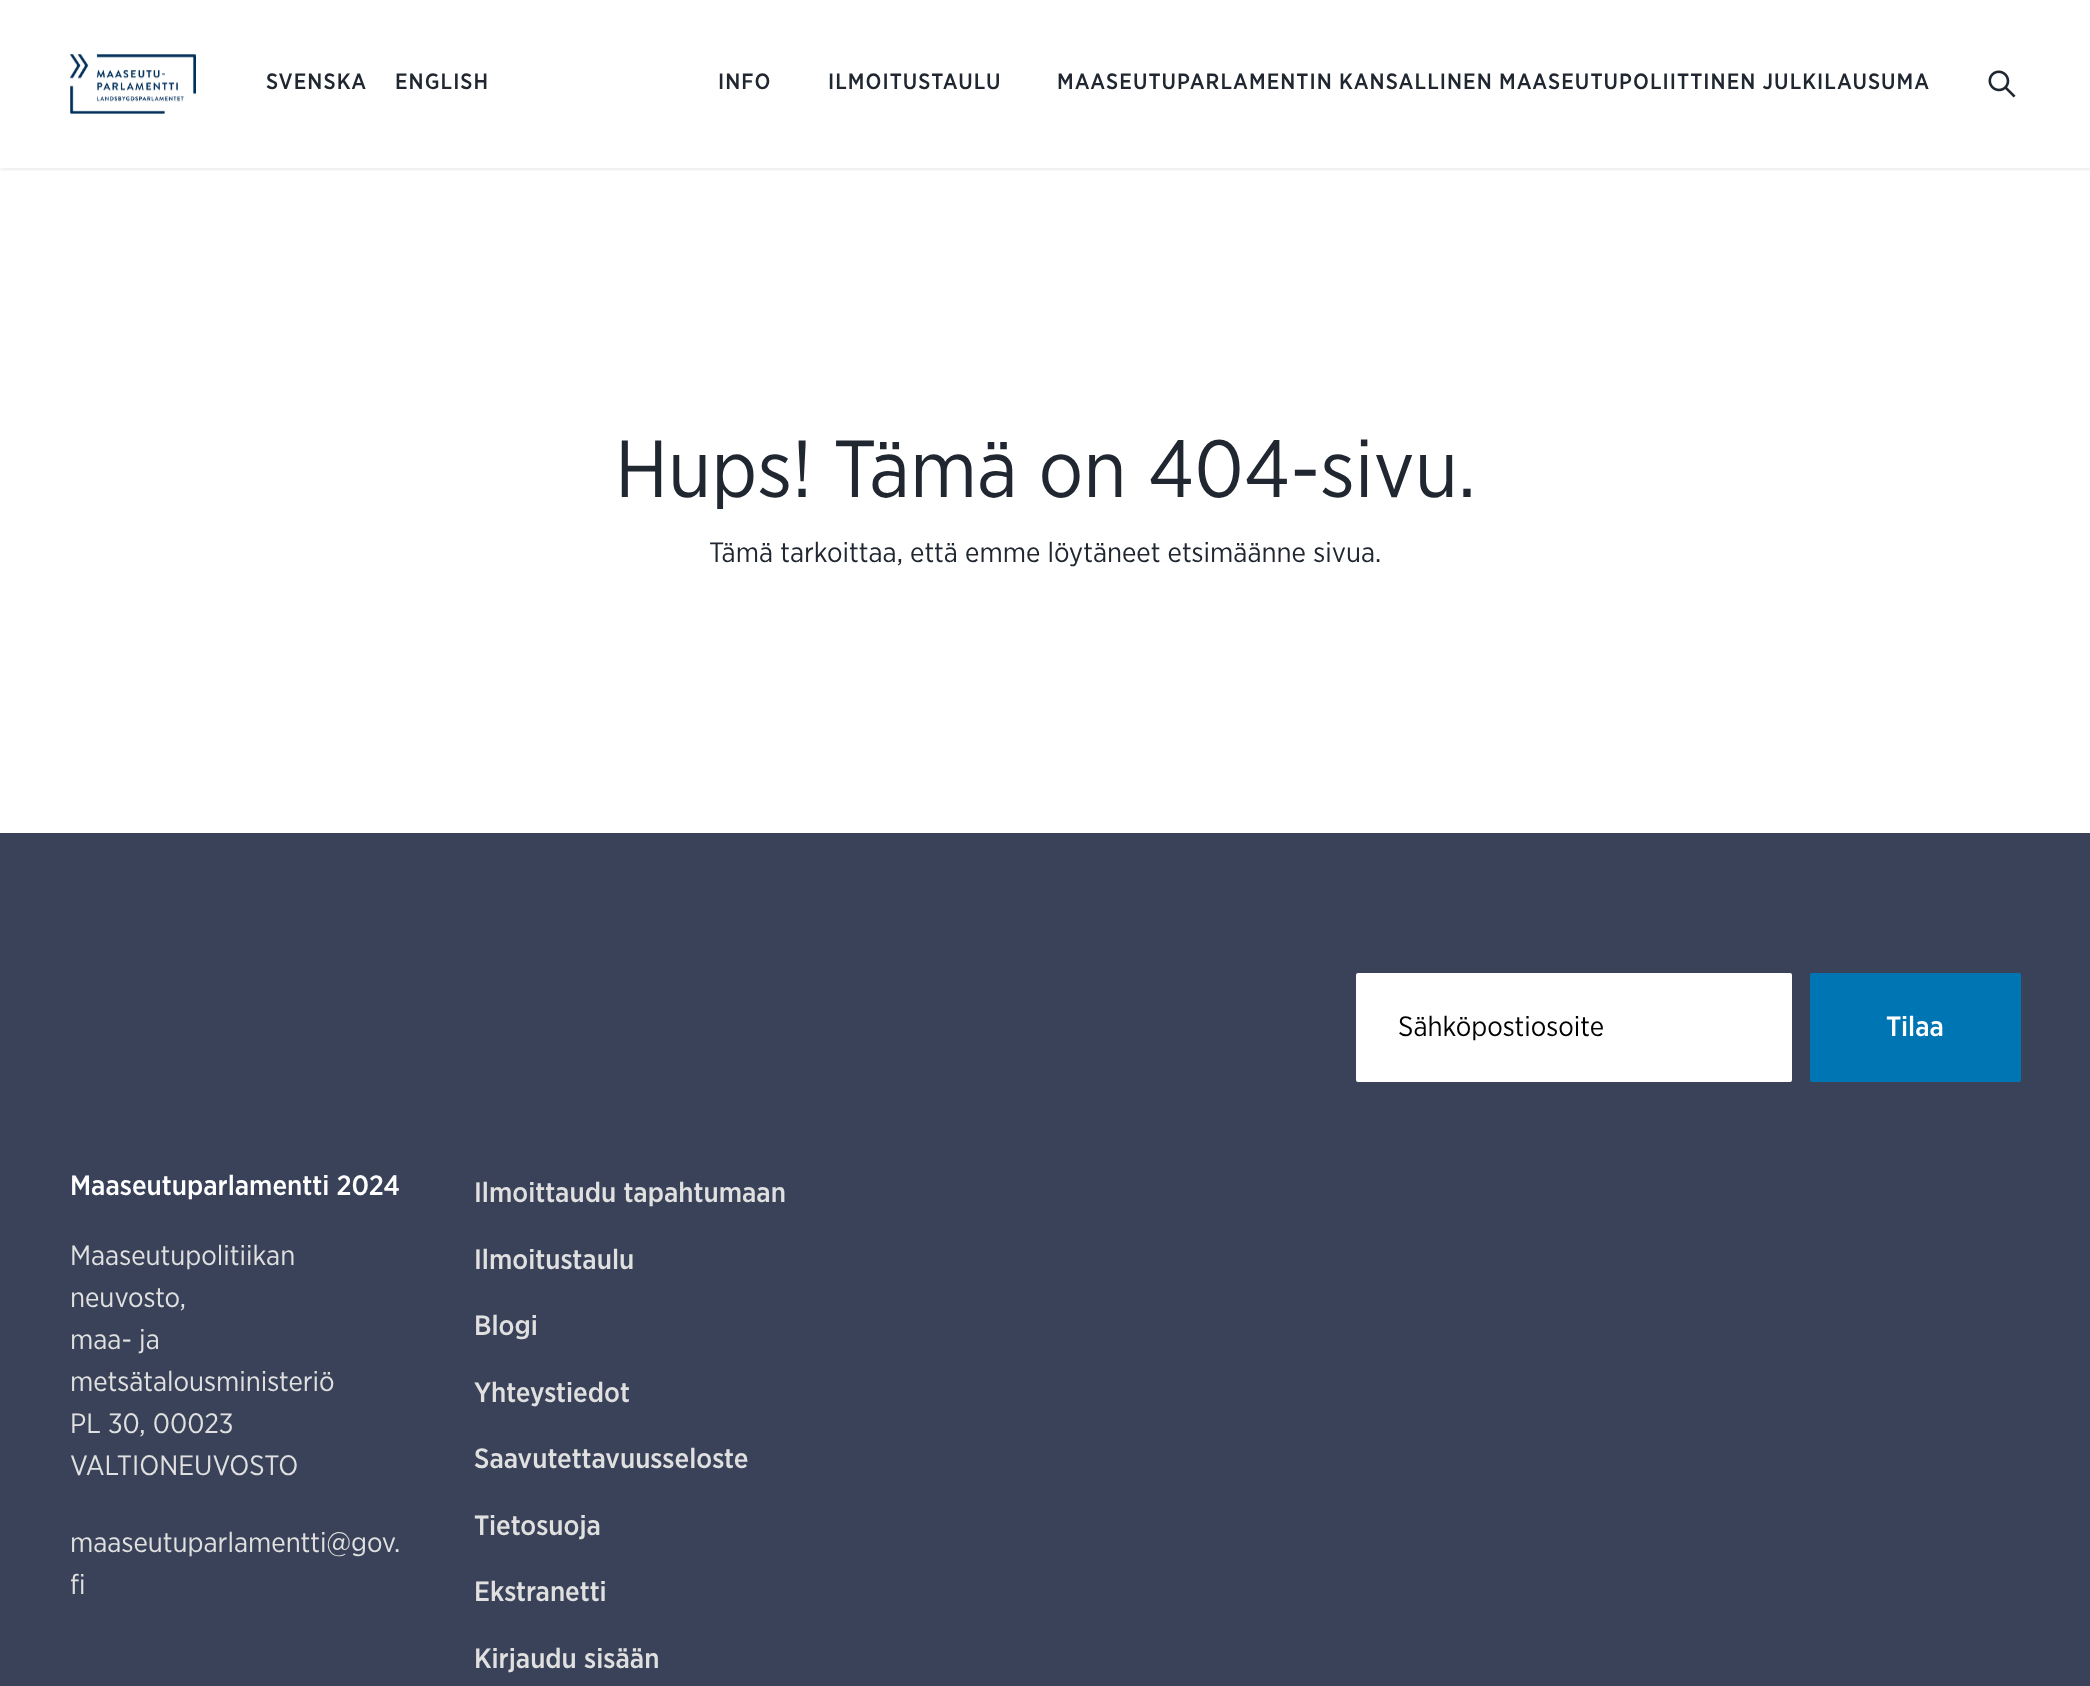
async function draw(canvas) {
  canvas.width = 2090;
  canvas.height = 1686;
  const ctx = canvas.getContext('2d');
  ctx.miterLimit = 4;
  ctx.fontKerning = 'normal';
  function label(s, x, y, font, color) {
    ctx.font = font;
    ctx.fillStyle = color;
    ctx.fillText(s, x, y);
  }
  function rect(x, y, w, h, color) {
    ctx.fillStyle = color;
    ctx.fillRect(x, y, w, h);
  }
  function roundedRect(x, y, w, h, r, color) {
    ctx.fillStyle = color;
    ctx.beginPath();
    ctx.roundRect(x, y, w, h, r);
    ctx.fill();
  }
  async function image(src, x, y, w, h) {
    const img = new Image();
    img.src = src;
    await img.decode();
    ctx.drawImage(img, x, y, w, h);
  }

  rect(0, 0, 2090, 1686, '#fff');
  ctx.save();
  ctx.beginPath();
  ctx.rect(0, 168, 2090, 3);
  ctx.clip();
  ctx.fillStyle = '#00000014';
  ctx.filter = 'blur(2px)';
  ctx.beginPath();
  ctx.rect(0, 2, 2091, 168);
  ctx.fill();
  ctx.filter = 'none';
  ctx.restore();
  await image('assets/img1.png', 70, 54, 126, 60);
  ctx.letterSpacing = '1.05px';
  label('SVENSKA', 266, 89, '500 22.1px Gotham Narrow', '#202730');
  label('ENGLISH', 395, 89, '500 22.1px Gotham Narrow', '#202730');
  label('INFO', 718, 89, '500 22.1px Gotham Narrow', '#202730');
  label('ILMOITUSTAULU', 828, 89, '500 22.1px Gotham Narrow', '#202730');
  ctx.wordSpacing = '-0.5px';
  label('MAASEUTUPARLAMENTIN KANSALLINEN MAASEUTUPOLIITTINEN JULKILAUSUMA', 1057, 89, '500 22.1px Gotham Narrow', '#202730');
  await image('assets/img2.png', 1988, 70, 28, 28);
  ctx.letterSpacing = '0px';
  ctx.wordSpacing = '0px';
  label('Hups! Tämä on 404-sivu.', 615, 497, '80.75px Gotham Narrow', '#202730');
  label('Tämä tarkoittaa, että emme löytäneet etsimäänne sivua.', 709, 562, '28px Gotham Narrow', '#202730');
  rect(0, 833, 2090, 853, '#394258');
  roundedRect(1356, 973, 436, 109, 2, '#fff');
  label('Sähköpostiosoite', 1398, 1036, '28px Gotham Narrow', '#000');
  roundedRect(1810, 973, 211, 109, 2, '#0075b3');
  label('Tilaa', 1886, 1036, '500 28px Gotham Narrow', '#fff');
  label('Maaseutuparlamentti 2024', 70, 1195, '500 28px Gotham Narrow', '#fff');
  label('Maaseutupolitiikan', 70, 1265, '28px Gotham Narrow', '#e0e0e0');
  label('neuvosto,', 70, 1307, '28px Gotham Narrow', '#e0e0e0');
  label('maa- ja', 70, 1349, '28px Gotham Narrow', '#e0e0e0');
  label('metsätalousministeriö', 70, 1391, '28px Gotham Narrow', '#e0e0e0');
  label('PL 30, 00023', 70, 1433, '28px Gotham Narrow', '#e0e0e0');
  label('VALTIONEUVOSTO', 70, 1475, '28px Gotham Narrow', '#e0e0e0');
  label('maaseutuparlamentti@gov.', 70, 1552, '28px Gotham Narrow', '#e0e0e0');
  label('fi', 70, 1594, '28px Gotham Narrow', '#e0e0e0');
  label('Ilmoittaudu tapahtumaan', 474, 1202, '500 28px Gotham Narrow', '#e0e0e0');
  label('Ilmoitustaulu', 474, 1269, '500 28px Gotham Narrow', '#e0e0e0');
  label('Blogi', 474, 1335, '500 28px Gotham Narrow', '#e0e0e0');
  label('Yhteystiedot', 474, 1402, '500 28px Gotham Narrow', '#e0e0e0');
  label('Saavutettavuusseloste', 474, 1468, '500 28px Gotham Narrow', '#e0e0e0');
  label('Tietosuoja', 474, 1535, '500 28px Gotham Narrow', '#e0e0e0');
  label('Ekstranetti', 474, 1601, '500 28px Gotham Narrow', '#e0e0e0');
  label('Kirjaudu sisään', 474, 1668, '500 28px Gotham Narrow', '#e0e0e0');
}

draw(document.querySelector('canvas'));
